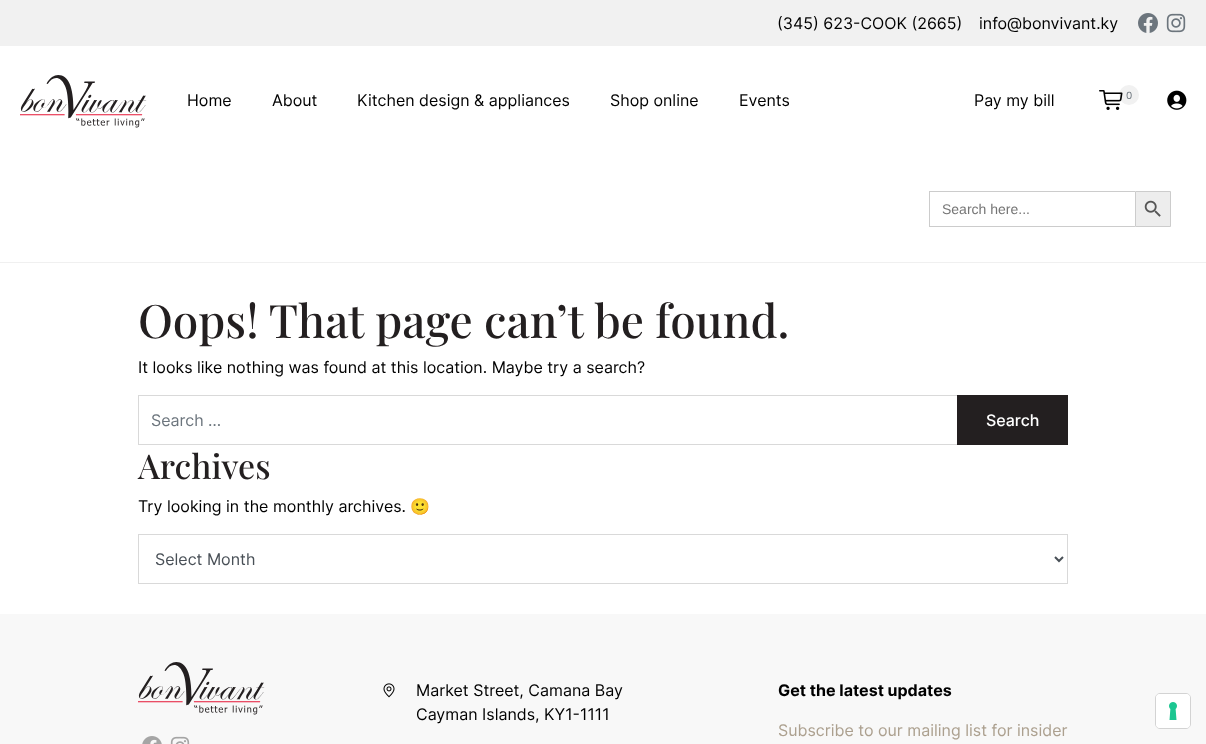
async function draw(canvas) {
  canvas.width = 1206;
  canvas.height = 744;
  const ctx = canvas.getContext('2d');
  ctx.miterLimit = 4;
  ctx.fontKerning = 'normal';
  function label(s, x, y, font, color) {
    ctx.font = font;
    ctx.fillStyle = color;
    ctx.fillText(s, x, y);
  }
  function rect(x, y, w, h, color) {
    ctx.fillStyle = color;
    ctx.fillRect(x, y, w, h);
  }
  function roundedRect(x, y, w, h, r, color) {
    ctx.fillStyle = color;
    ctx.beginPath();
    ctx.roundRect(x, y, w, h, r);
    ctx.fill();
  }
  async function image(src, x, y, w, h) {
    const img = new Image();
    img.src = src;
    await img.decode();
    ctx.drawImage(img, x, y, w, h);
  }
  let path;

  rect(0, 0, 1206, 744, '#fff');
  rect(0, 0, 1206, 46, '#f1f1f1');
  label('(345) 623-COOK (2665)', 777, 29, '16px Inter', '#000');
  label('info@bonvivant.ky', 979, 29, '16px Inter', '#000');
  await image('assets/img1.png', 1138, 13, 20, 20);
  await image('assets/img2.png', 1166, 13, 20, 20);
  rect(0, 262, 1206, 1, '#f0f0f0');
  await image('assets/img3.png', 20, 75, 127, 53);
  label('Home', 187, 106, '16px Inter', '#000');
  label('About', 272, 106, '16px Inter', '#000');
  label('Kitchen design & appliances', 357, 106, '16px Inter', '#000');
  label('Shop online', 610, 106, '16px Inter', '#000');
  label('Events', 739, 106, '16px Inter', '#000');
  label('Pay my bill', 974, 106, '16px Inter', '#000');
  ctx.fillStyle = '#f1f1f1';
  ctx.beginPath();
  ctx.arc(1129, 95, 10, 0, 2 * Math.PI);
  ctx.fill();
  await image('assets/img4.png', 1099, 90, 24, 20);
  label('0', 1126, 99, '10px Inter', '#6c757d');
  await image('assets/img5.png', 1167, 90, 20, 20);
  rect(929, 191, 206, 1, '#ccc');
  rect(929, 226, 206, 1, '#ccc');
  rect(929, 191, 1, 36, '#ccc');
  label('Search here...', 942, 214, '14px Liberation Sans', '#757575');
  ctx.fillStyle = '#ededed';
  ctx.beginPath();
  ctx.rect(1135.5, 191.5, 35, 35);
  ctx.fill();
  ctx.strokeStyle = '#ccc';
  ctx.stroke();
  await image('assets/img6.png', 1144, 200, 17, 17);
  label('Oops! That page can’t be found.', 138, 338, '500 46px Playfair Display', '#231f20');
  label('It looks like nothing was found at this location. Maybe try a search?', 138, 373, '16px Inter', '#000');
  ctx.strokeStyle = '#d9d9d9';
  ctx.strokeRect(138.5, 395.5, 819, 49);
  label('Search …', 151, 426, '16px Inter', '#6c757d');
  rect(957, 395, 111, 50, '#231f20');
  label('Search', 986, 426, '500 16px Inter', '#fff');
  label('Archives', 138, 479, '500 34px Playfair Display', '#231f20');
  label('Try looking in the monthly archives.', 138, 512, '16px Inter', '#000');
  label('🙂', 410, 512, '16px Noto Color Emoji', '#000');
  ctx.strokeRect(138.5, 534.5, 929, 49);
  path = new Path2D('M1055 557L1059 561L1063 557');
  ctx.strokeStyle = '#495057';
  ctx.lineWidth = 2;
  ctx.stroke(path);
  label('Select Month', 155, 565, '16px Inter', '#495057');
  rect(0, 614, 1206, 130, '#f8f8f8');
  await image('assets/img7.png', 138, 662, 127, 53);
  await image('assets/img8.png', 142, 736, 20, 8);
  await image('assets/img9.png', 170, 736, 20, 8);
  await image('assets/img10.png', 383, 683, 12, 15);
  label('Market Street, Camana Bay', 416, 696, '16px Inter', '#000');
  label('Cayman Islands, KY1-1111', 416, 720, '16px Inter', '#000');
  label('Get the latest updates', 778, 696, 'bold 16px Inter', '#000');
  label('Subscribe to our mailing list for insider', 778, 736, '16px Inter', '#aca08f');
  ctx.beginPath();
  ctx.roundRect(1155.5, 693.5, 35, 35, 4.5);
  ctx.strokeStyle = '#d3d3d3';
  ctx.lineWidth = 1;
  ctx.stroke();
  roundedRect(1156, 694, 34, 34, 4, '#fff');
  await image('assets/img11.png', 1169, 702, 8, 18);
}

draw(document.querySelector('canvas'));
